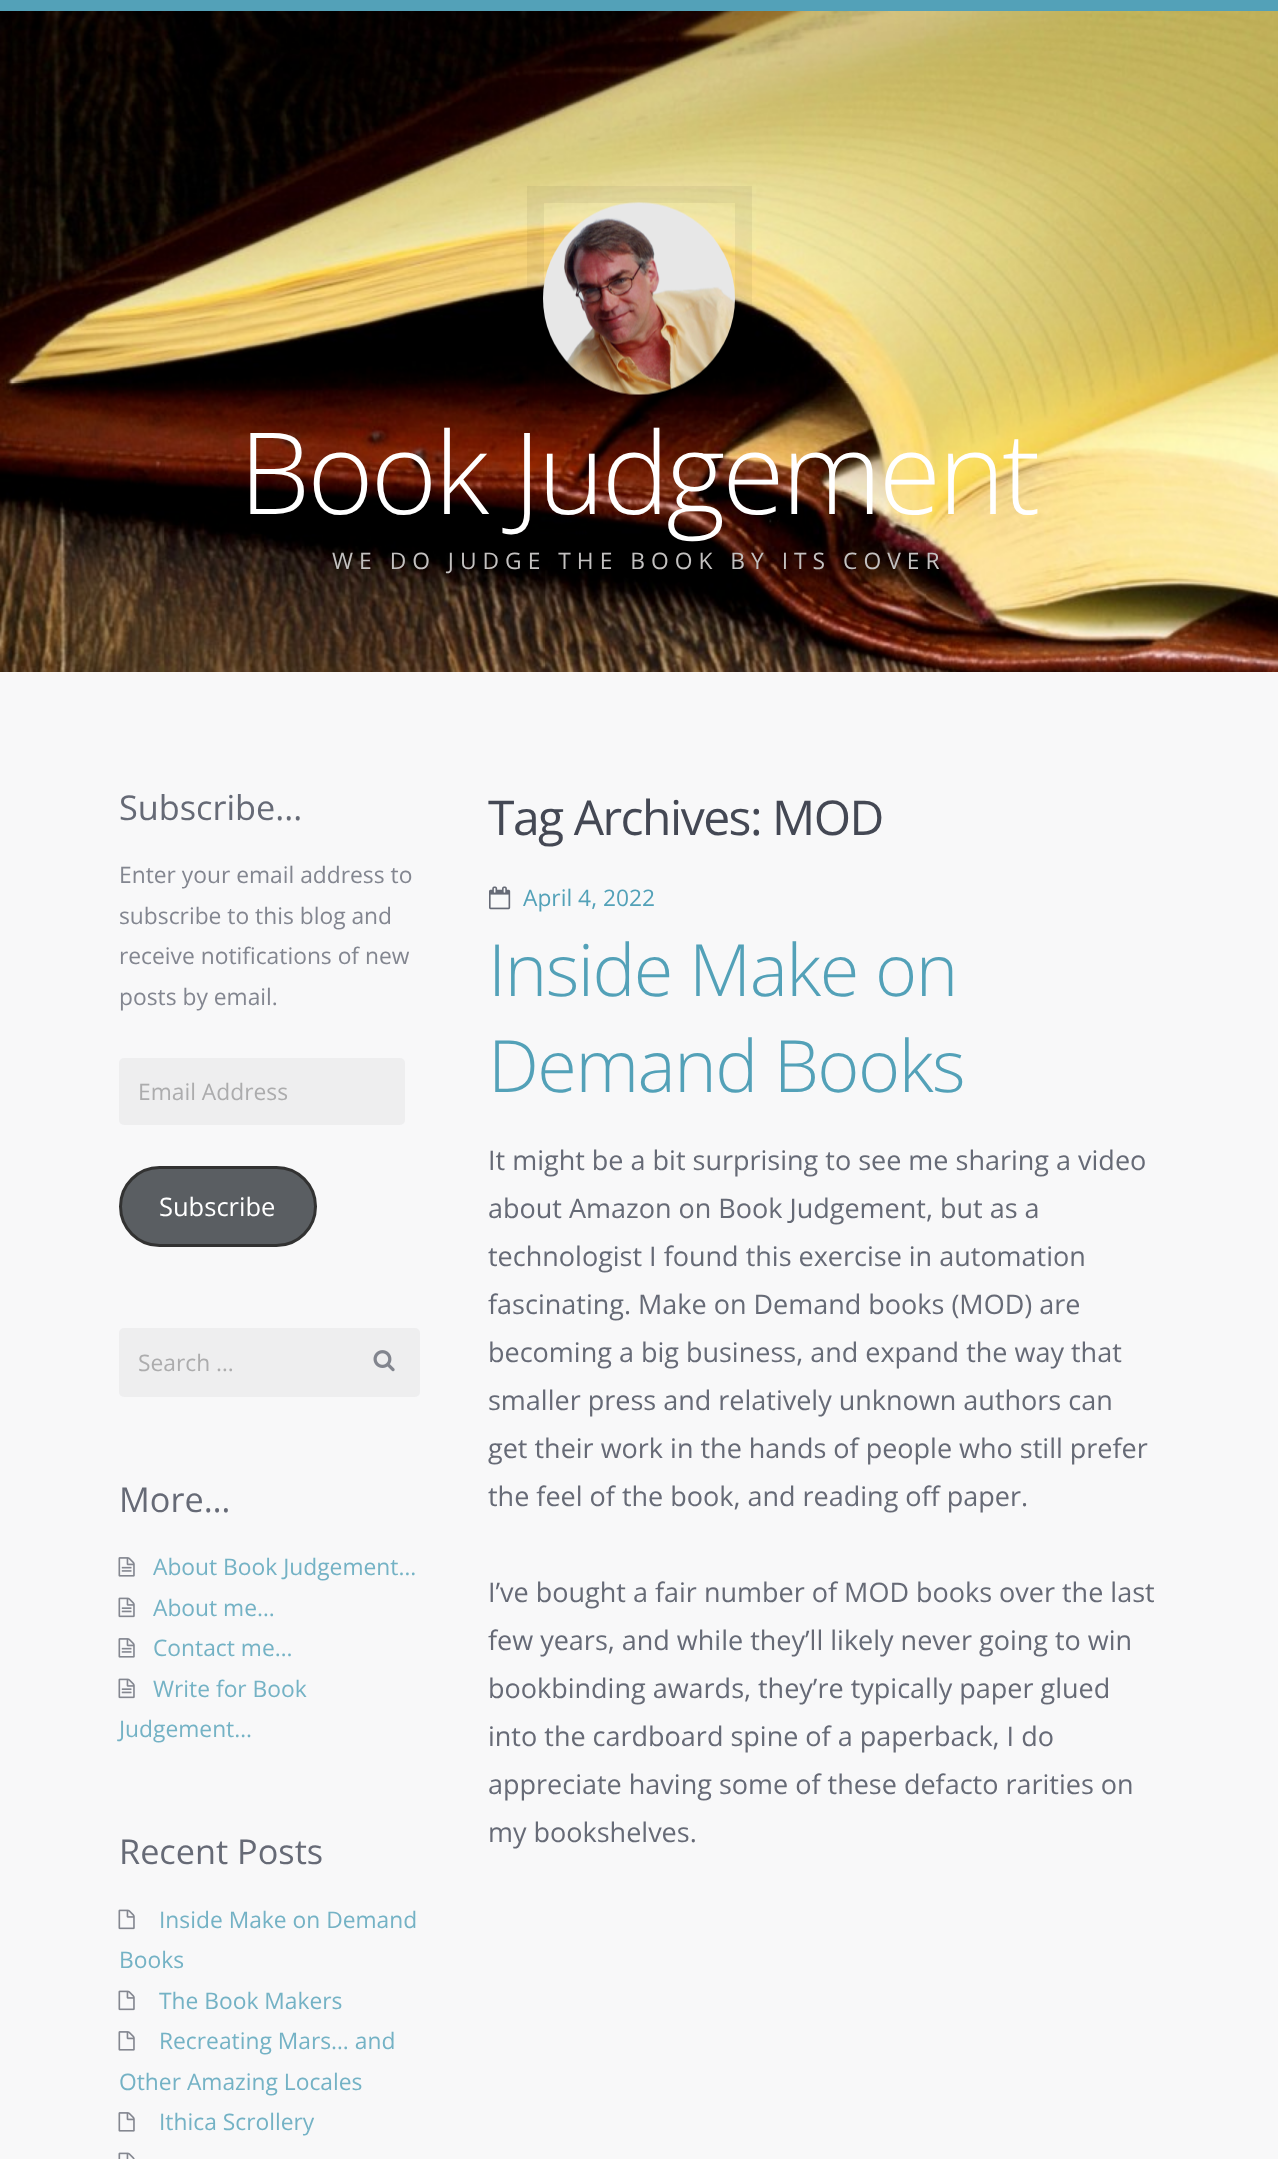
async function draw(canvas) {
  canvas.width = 1278;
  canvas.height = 2159;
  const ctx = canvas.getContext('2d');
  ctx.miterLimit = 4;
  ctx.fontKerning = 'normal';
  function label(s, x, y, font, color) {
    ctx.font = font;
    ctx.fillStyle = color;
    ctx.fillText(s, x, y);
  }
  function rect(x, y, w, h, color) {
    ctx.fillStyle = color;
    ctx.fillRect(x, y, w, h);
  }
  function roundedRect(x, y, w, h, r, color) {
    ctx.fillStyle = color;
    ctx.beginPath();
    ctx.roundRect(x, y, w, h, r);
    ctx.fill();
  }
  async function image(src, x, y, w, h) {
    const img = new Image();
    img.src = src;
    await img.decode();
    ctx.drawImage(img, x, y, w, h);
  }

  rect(0, 0, 1278, 2159, '#f8f8f9');
  await image('assets/img1.png', 0, 11, 1278, 661);
  rect(0, 0, 1278, 11, '#53a1b8');
  ctx.strokeStyle = '#0000000d';
  ctx.lineWidth = 17;
  ctx.strokeRect(535.5, 194.5, 208, 208);
  await image('assets/img2.png', 543, 202, 192, 193);
  ctx.letterSpacing = '-3px';
  label('Book Judgement', 239, 514, '300 113.5px Open Sans', '#fff');
  ctx.letterSpacing = '6px';
  label('WE DO JUDGE THE BOOK BY ITS COVER', 332, 569, '22.8px Open Sans', '#c3c1c0');
  ctx.letterSpacing = '0px';
  label('Subscribe...', 119, 820, '34.25px Open Sans', '#666a76');
  label('Enter your email address to', 119, 883, '22.8px Open Sans', '#838690');
  label('subscribe to this blog and', 119, 924, '22.8px Open Sans', '#838690');
  label('receive notifications of new', 119, 964, '22.8px Open Sans', '#838690');
  label('posts by email.', 119, 1005, '22.8px Open Sans', '#838690');
  roundedRect(119, 1058, 286, 67, 5, '#eeeeef');
  label('Email Address', 138, 1100, '22.8px Open Sans', '#acacad');
  ctx.fillStyle = '#5a5e62';
  ctx.beginPath();
  ctx.roundRect(120.5, 1167.5, 195, 78, 39);
  ctx.fill();
  ctx.strokeStyle = '#323232';
  ctx.lineWidth = 3;
  ctx.stroke();
  label('Subscribe', 159, 1216, '25.5px Open Sans', '#fff');
  roundedRect(119, 1328, 301, 69, 5, '#eeeeef');
  label('Search …', 138, 1371, '22.8px Open Sans', '#acacad');
  await image('assets/img3.png', 373, 1350, 22, 22);
  label('More…', 119, 1512, '34.25px Open Sans', '#666a76');
  await image('assets/img4.png', 118, 1557, 17, 20);
  label('About Book Judgement…', 153, 1575, '22.8px Open Sans', '#74b2c5');
  await image('assets/img5.png', 118, 1597, 17, 21);
  label('About me…', 153, 1616, '22.8px Open Sans', '#74b2c5');
  await image('assets/img4.png', 118, 1638, 17, 20);
  label('Contact me…', 153, 1656, '22.8px Open Sans', '#74b2c5');
  await image('assets/img5.png', 118, 1678, 17, 21);
  label('Write for Book', 153, 1697, '22.8px Open Sans', '#74b2c5');
  label('Judgement…', 119, 1737, '22.8px Open Sans', '#74b2c5');
  label('Recent Posts', 119, 1864, '34.25px Open Sans', '#666a76');
  await image('assets/img6.png', 118, 1909, 17, 21);
  label('Inside Make on Demand', 159, 1928, '22.8px Open Sans', '#74b2c5');
  label('Books', 119, 1968, '22.8px Open Sans', '#74b2c5');
  await image('assets/img6.png', 118, 1990, 17, 21);
  label('The Book Makers', 159, 2009, '22.8px Open Sans', '#74b2c5');
  await image('assets/img7.png', 118, 2031, 17, 20);
  label('Recreating Mars… and', 159, 2049, '22.8px Open Sans', '#74b2c5');
  label('Other Amazing Locales', 119, 2090, '22.8px Open Sans', '#74b2c5');
  await image('assets/img7.png', 118, 2112, 17, 20);
  label('Ithica Scrollery', 159, 2130, '22.8px Open Sans', '#74b2c5');
  await image('assets/img8.png', 118, 2152, 17, 7);
  ctx.letterSpacing = '-1.5px';
  label('Tag Archives: MOD', 488, 835, '48px Open Sans', '#444854');
  await image('assets/img9.png', 489, 886, 22, 24);
  ctx.letterSpacing = '0px';
  label('April 4, 2022', 523, 906, '22.8px Open Sans', '#53a1b8');
  ctx.letterSpacing = '-1.5px';
  label('Inside Make on', 488, 996, '300 72px Open Sans', '#53a1b8');
  label('Demand Books', 488, 1092, '300 72px Open Sans', '#53a1b8');
  ctx.letterSpacing = '0px';
  label('It might be a bit surprising to see me sharing a video', 488, 1170, '27px Open Sans', '#666a76');
  label('about Amazon on Book Judgement, but as a', 488, 1218, '27px Open Sans', '#666a76');
  label('technologist I found this exercise in automation', 488, 1266, '27px Open Sans', '#666a76');
  label('fascinating. Make on Demand books (MOD) are', 488, 1314, '27px Open Sans', '#666a76');
  label('becoming a big business, and expand the way that', 488, 1362, '27px Open Sans', '#666a76');
  label('smaller press and relatively unknown authors can', 488, 1410, '27px Open Sans', '#666a76');
  label('get their work in the hands of people who still prefer', 488, 1458, '27px Open Sans', '#666a76');
  label('the feel of the book, and reading off paper.', 488, 1506, '27px Open Sans', '#666a76');
  label('I’ve bought a fair number of MOD books over the last', 488, 1602, '27px Open Sans', '#666a76');
  label('few years, and while they’ll likely never going to win', 488, 1650, '27px Open Sans', '#666a76');
  label('bookbinding awards, they’re typically paper glued', 488, 1698, '27px Open Sans', '#666a76');
  label('into the cardboard spine of a paperback, I do', 488, 1746, '27px Open Sans', '#666a76');
  label('appreciate having some of these defacto rarities on', 488, 1794, '27px Open Sans', '#666a76');
  label('my bookshelves.', 488, 1842, '27px Open Sans', '#666a76');
}

draw(document.querySelector('canvas'));
